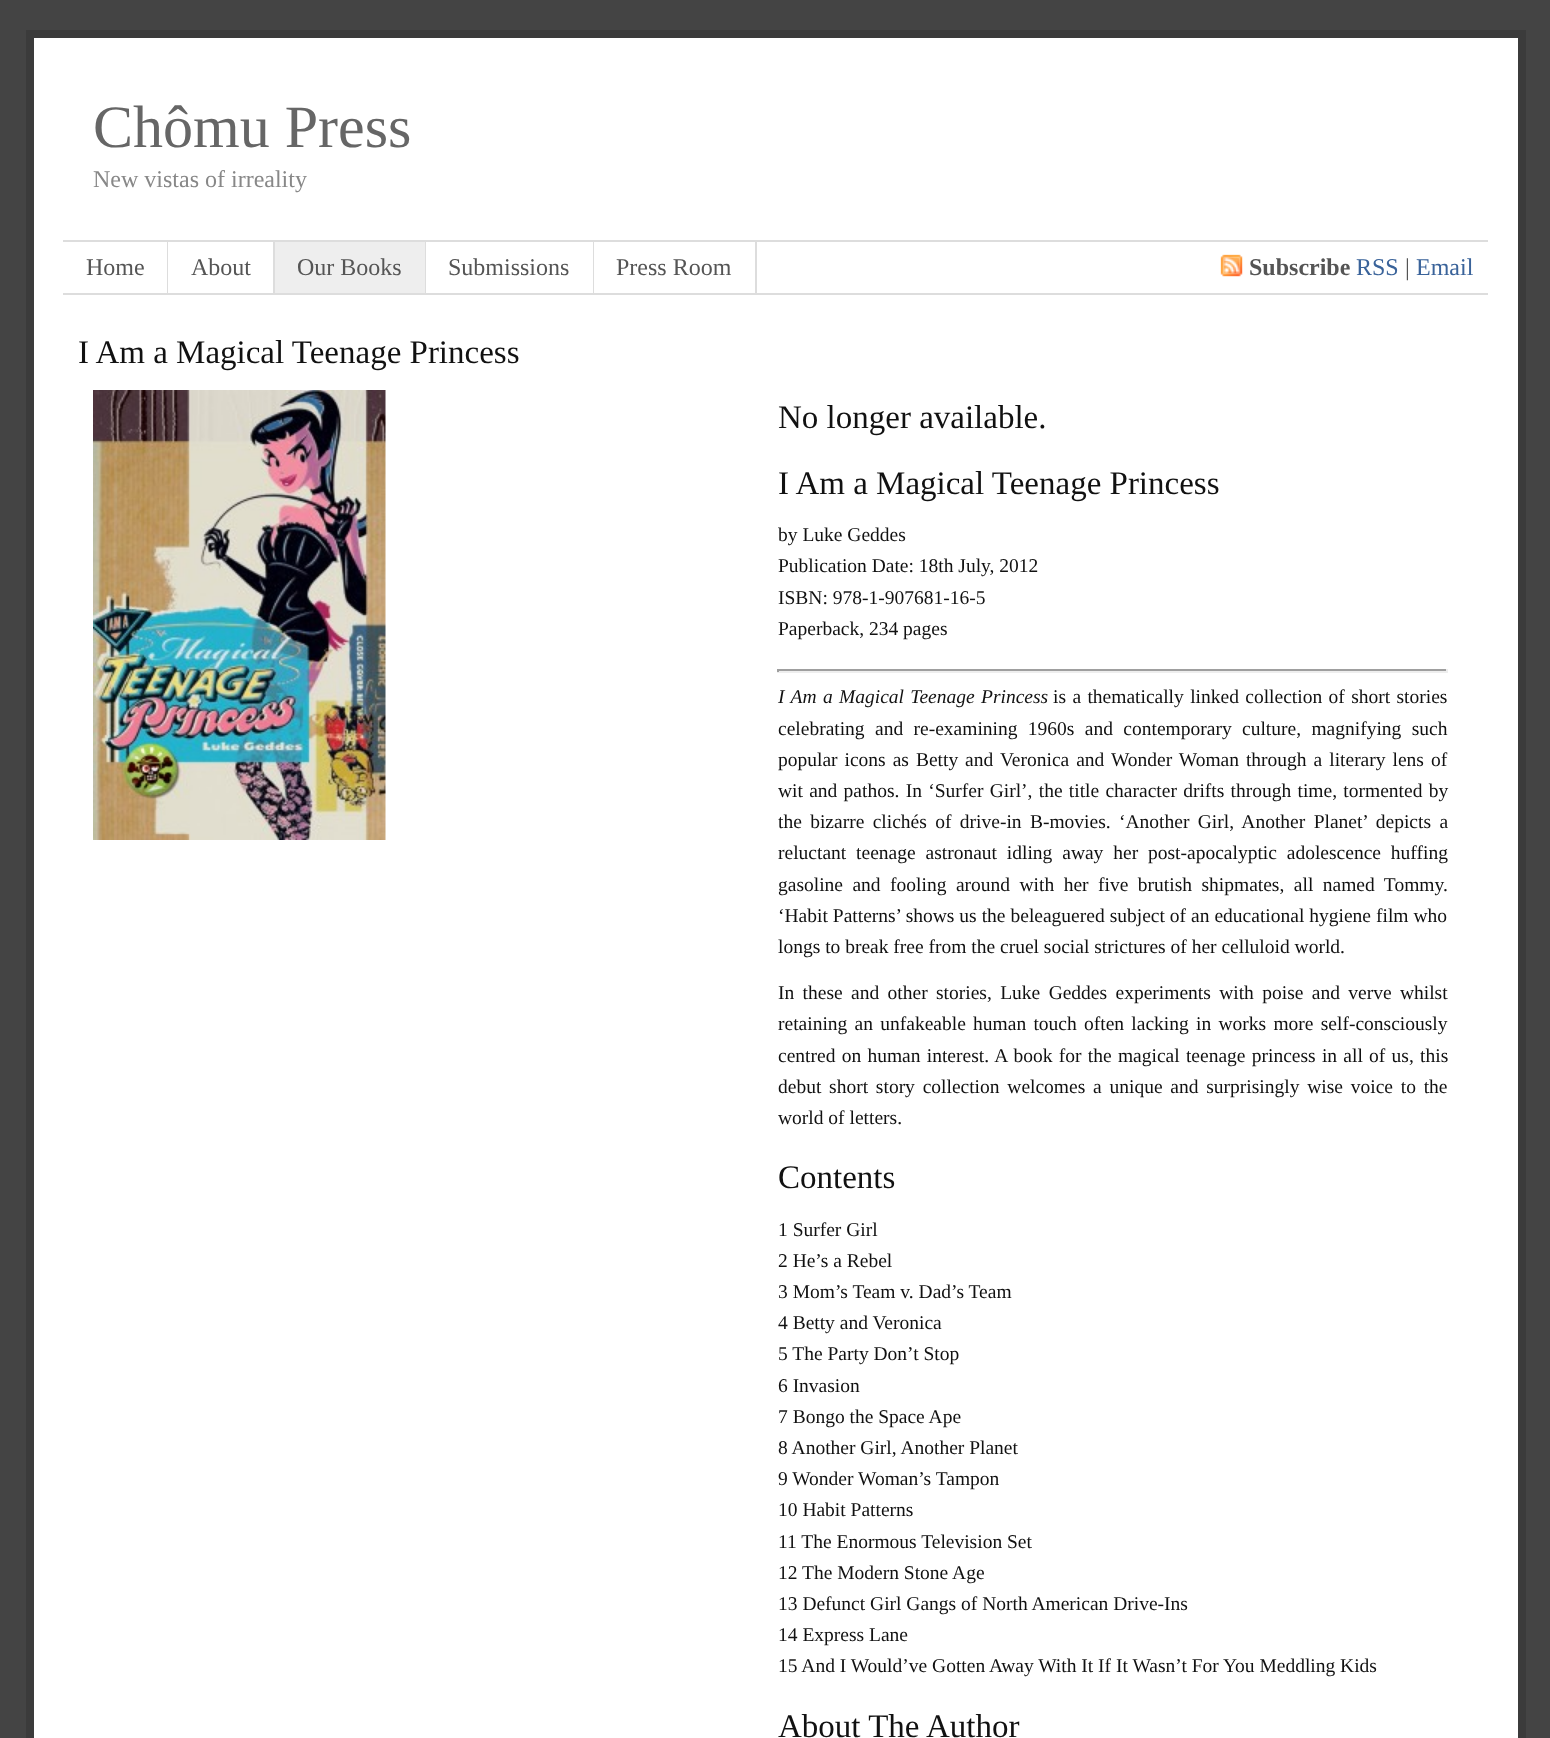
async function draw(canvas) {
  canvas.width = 1550;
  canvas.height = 1738;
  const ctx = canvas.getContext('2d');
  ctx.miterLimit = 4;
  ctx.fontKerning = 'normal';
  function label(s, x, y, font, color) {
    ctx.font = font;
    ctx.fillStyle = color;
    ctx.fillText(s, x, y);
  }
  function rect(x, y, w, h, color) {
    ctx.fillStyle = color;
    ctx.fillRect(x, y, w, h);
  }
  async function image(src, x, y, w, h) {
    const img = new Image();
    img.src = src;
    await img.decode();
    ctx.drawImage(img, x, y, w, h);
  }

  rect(0, 0, 1550, 1738, '#444');
  ctx.fillStyle = '#fff';
  ctx.beginPath();
  ctx.rect(30, 34, 1492, 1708);
  ctx.fill();
  ctx.strokeStyle = '#3b3b3b';
  ctx.lineWidth = 8;
  ctx.stroke();
  label('Chômu Press', 93, 147, '60px Liberation Serif', '#666');
  label('New vistas of irreality', 93, 187, '24px Liberation Serif', '#888');
  rect(63, 240, 1425, 2, '#ddd');
  rect(63, 293, 1425, 2, '#ddd');
  rect(167, 242, 1, 51, '#ddd');
  label('Home', 86, 275, '24px Liberation Serif', '#555');
  rect(273, 242, 2, 51, '#ddd');
  label('About', 191, 275, '24px Liberation Serif', '#555');
  rect(275, 242, 150, 51, '#eee');
  rect(425, 242, 1, 51, '#ddd');
  label('Our Books', 297, 275, '24px Liberation Serif', '#555');
  rect(593, 242, 1, 51, '#ddd');
  label('Submissions', 448, 275, '24px Liberation Serif', '#555');
  rect(755, 242, 2, 51, '#ddd');
  label('Press Room', 616, 275, '24px Liberation Serif', '#555');
  await image('assets/img1.png', 1220, 254, 23, 23);
  label('Subscribe', 1249, 275, 'bold 24px Liberation Serif', '#555');
  label('RSS', 1356, 275, '24px Liberation Serif', '#3a639a');
  label('|', 1405, 275, '24px Liberation Serif', '#555');
  label('Email', 1416, 275, '24px Liberation Serif', '#3a639a');
  label('I Am a Magical Teenage Princess', 78, 363, '33px Liberation Serif', '#111');
  await image('assets/img2.png', 93, 390, 293, 450);
  label('No longer available.', 778, 428, '33px Liberation Serif', '#111');
  label('I Am a Magical Teenage Princess', 778, 494, '33px Liberation Serif', '#111');
  label('by Luke Geddes', 778, 541, '19.5px Liberation Serif', '#111');
  label('Publication Date: 18th July, 2012', 778, 572, '19.5px Liberation Serif', '#111');
  label('ISBN: 978-1-907681-16-5', 778, 604, '19.5px Liberation Serif', '#111');
  label('Paperback, 234 pages', 778, 635, '19.5px Liberation Serif', '#111');
  rect(777, 669, 671, 2, '#9f9f9f');
  rect(1446, 669, 2, 3, '#eee');
  rect(777, 671, 671, 2, '#eee');
  rect(777, 669, 2, 3, '#9f9f9f');
  ctx.wordSpacing = '1.5px';
  label('I Am a Magical Teenage Princess', 778, 703, 'italic 19.5px Liberation Serif', '#111');
  label('is a thematically linked collection of short stories', 1053, 703, '19.5px Liberation Serif', '#111');
  ctx.wordSpacing = '5.5px';
  label('celebrating and re-examining 1960s and contemporary culture, magnifying such', 778, 735, '19.5px Liberation Serif', '#111');
  ctx.wordSpacing = '2.1px';
  label('popular icons as Betty and Veronica and Wonder Woman through a literary lens of', 778, 766, '19.5px Liberation Serif', '#111');
  ctx.wordSpacing = '1.4px';
  label('wit and pathos. In ‘Surfer Girl’, the title character drifts through time, tormented by', 778, 797, '19.5px Liberation Serif', '#111');
  ctx.wordSpacing = '3.5px';
  label('the bizarre clichés of drive-in B-movies. ‘Another Girl, Another Planet’ depicts a', 778, 828, '19.5px Liberation Serif', '#111');
  ctx.wordSpacing = '5px';
  label('reluctant teenage astronaut idling away her post-apocalyptic adolescence huffing', 778, 859, '19.5px Liberation Serif', '#111');
  ctx.wordSpacing = '4.6px';
  label('gasoline and fooling around with her five brutish shipmates, all named Tommy.', 778, 891, '19.5px Liberation Serif', '#111');
  ctx.wordSpacing = '0.1px';
  label('‘Habit Patterns’ shows us the beleaguered subject of an educational hygiene film who', 778, 922, '19.5px Liberation Serif', '#111');
  ctx.wordSpacing = '0px';
  label('longs to break free from the cruel social strictures of her celluloid world.', 778, 953, '19.5px Liberation Serif', '#111');
  ctx.wordSpacing = '3.5px';
  label('In these and other stories, Luke Geddes experiments with poise and verve whilst', 778, 999, '19.5px Liberation Serif', '#111');
  ctx.wordSpacing = '2.4px';
  label('retaining an unfakeable human touch often lacking in works more self-consciously', 778, 1030, '19.5px Liberation Serif', '#111');
  ctx.wordSpacing = '1.4px';
  label('centred on human interest. A book for the magical teenage princess in all of us, this', 778, 1062, '19.5px Liberation Serif', '#111');
  ctx.wordSpacing = '2.9px';
  label('debut short story collection welcomes a unique and surprisingly wise voice to the', 778, 1093, '19.5px Liberation Serif', '#111');
  ctx.wordSpacing = '0px';
  label('world of letters.', 778, 1124, '19.5px Liberation Serif', '#111');
  label('Contents', 778, 1188, '33px Liberation Serif', '#111');
  label('1 Surfer Girl', 778, 1236, '19.5px Liberation Serif', '#111');
  label('2 He’s a Rebel', 778, 1267, '19.5px Liberation Serif', '#111');
  label('3 Mom’s Team v. Dad’s Team', 778, 1298, '19.5px Liberation Serif', '#111');
  label('4 Betty and Veronica', 778, 1329, '19.5px Liberation Serif', '#111');
  label('5 The Party Don’t Stop', 778, 1360, '19.5px Liberation Serif', '#111');
  label('6 Invasion', 778, 1392, '19.5px Liberation Serif', '#111');
  label('7 Bongo the Space Ape', 778, 1423, '19.5px Liberation Serif', '#111');
  label('8 Another Girl, Another Planet', 778, 1454, '19.5px Liberation Serif', '#111');
  label('9 Wonder Woman’s Tampon', 778, 1485, '19.5px Liberation Serif', '#111');
  label('10 Habit Patterns', 778, 1516, '19.5px Liberation Serif', '#111');
  label('11 The Enormous Television Set', 778, 1548, '19.5px Liberation Serif', '#111');
  label('12 The Modern Stone Age', 778, 1579, '19.5px Liberation Serif', '#111');
  label('13 Defunct Girl Gangs of North American Drive-Ins', 778, 1610, '19.5px Liberation Serif', '#111');
  label('14 Express Lane', 778, 1641, '19.5px Liberation Serif', '#111');
  label('15 And I Would’ve Gotten Away With It If It Wasn’t For You Meddling Kids', 778, 1672, '19.5px Liberation Serif', '#111');
  label('About The Author', 778, 1737, '33px Liberation Serif', '#111');
}

draw(document.querySelector('canvas'));
